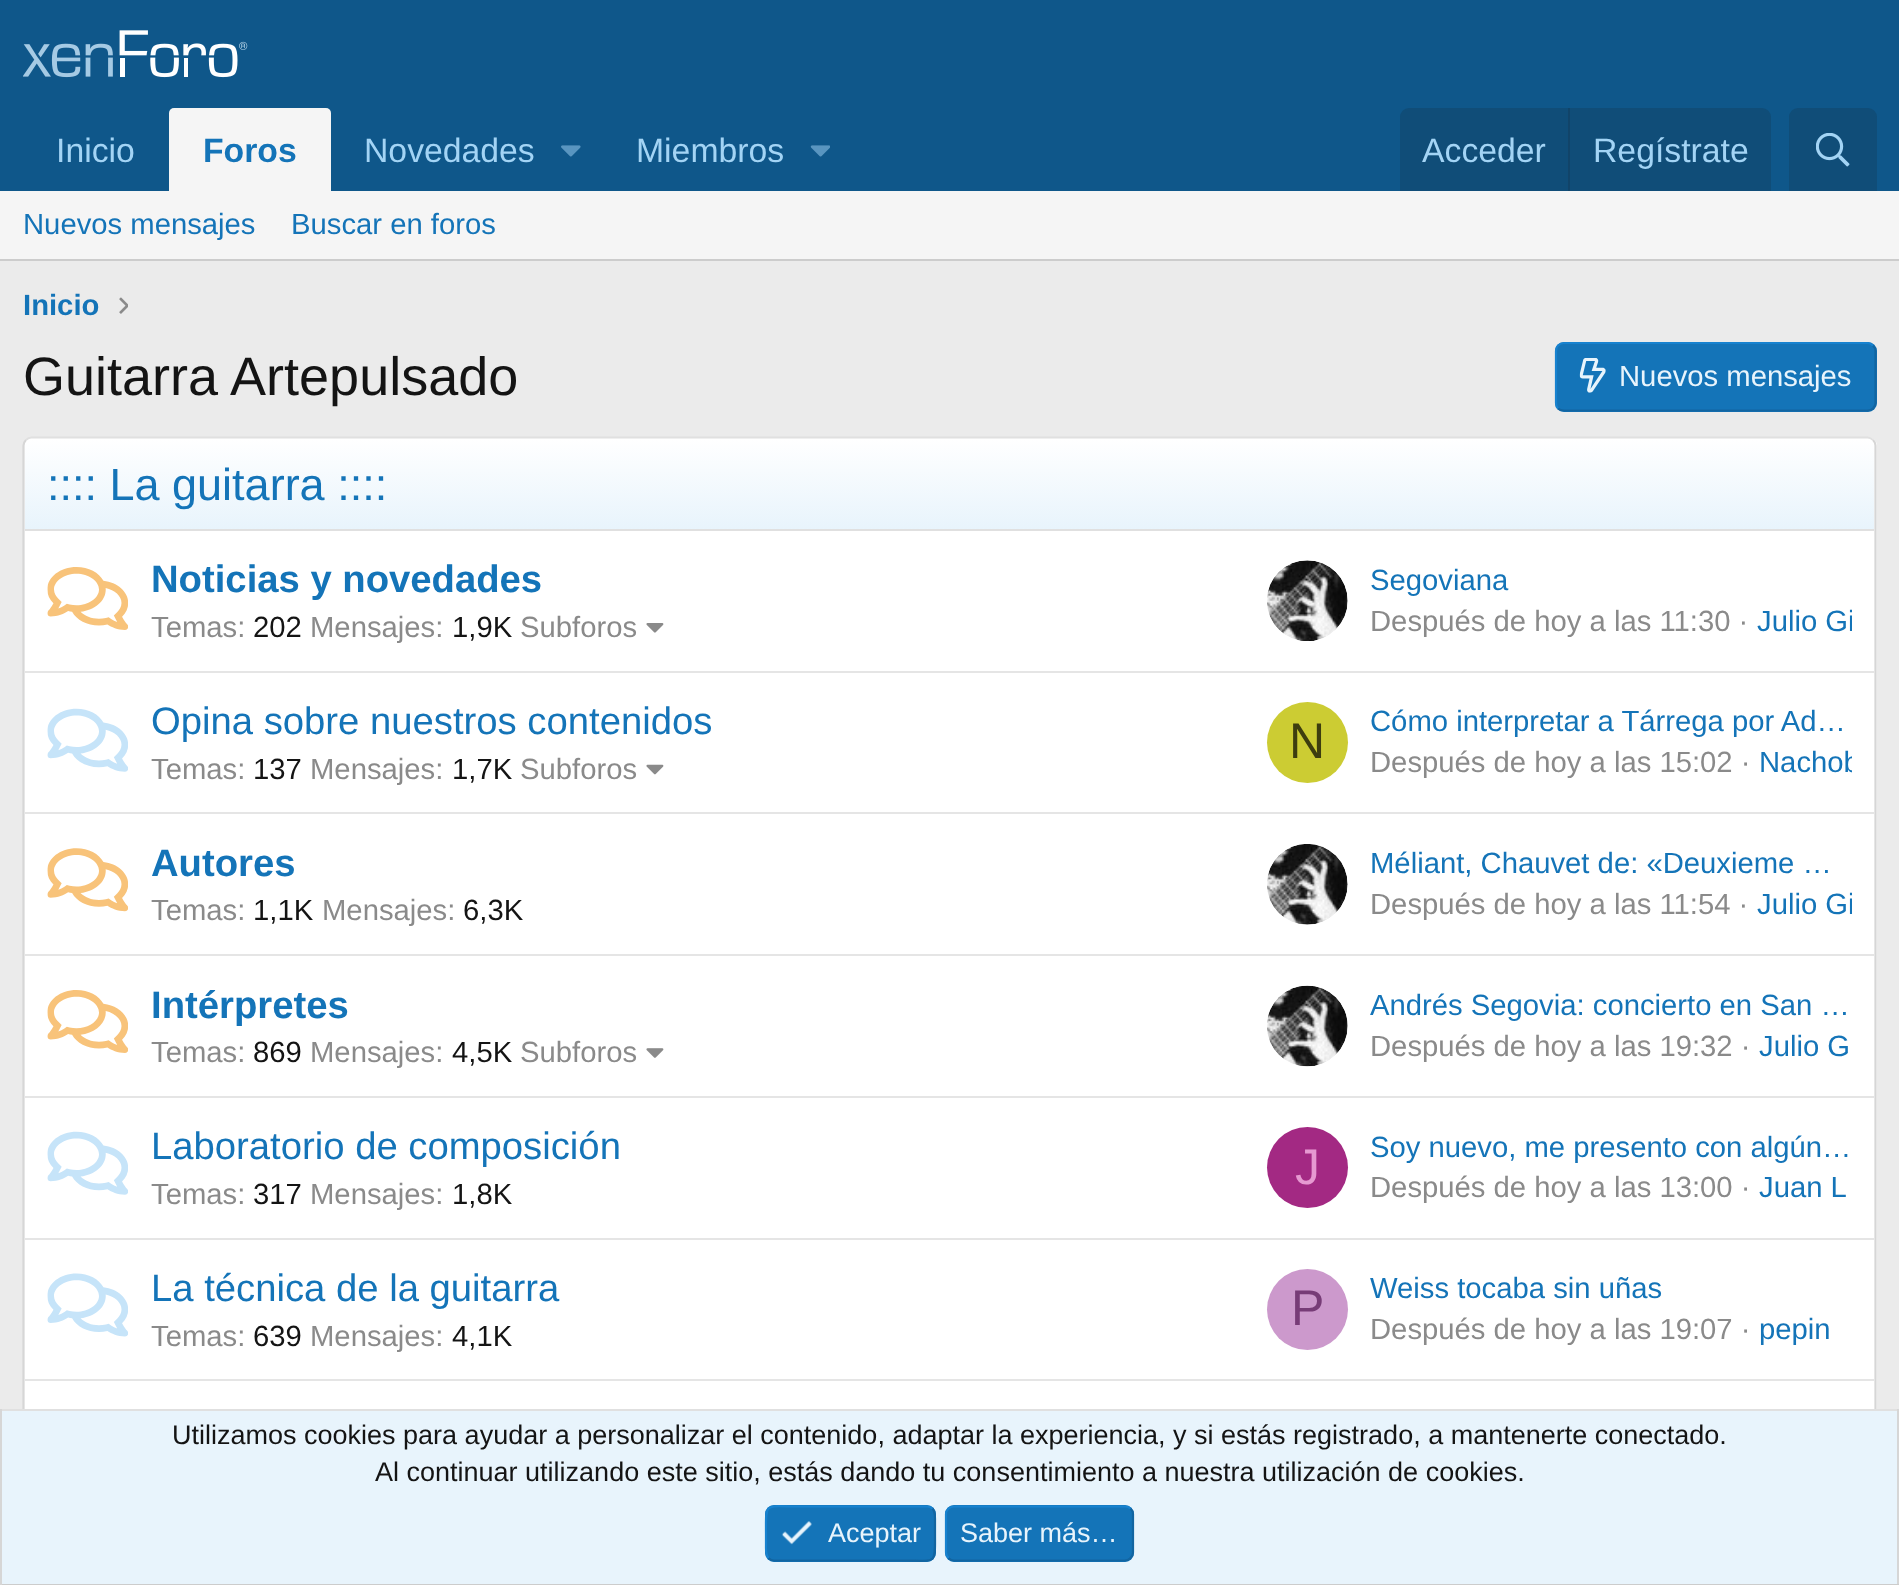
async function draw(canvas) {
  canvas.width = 1899;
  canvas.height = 1585;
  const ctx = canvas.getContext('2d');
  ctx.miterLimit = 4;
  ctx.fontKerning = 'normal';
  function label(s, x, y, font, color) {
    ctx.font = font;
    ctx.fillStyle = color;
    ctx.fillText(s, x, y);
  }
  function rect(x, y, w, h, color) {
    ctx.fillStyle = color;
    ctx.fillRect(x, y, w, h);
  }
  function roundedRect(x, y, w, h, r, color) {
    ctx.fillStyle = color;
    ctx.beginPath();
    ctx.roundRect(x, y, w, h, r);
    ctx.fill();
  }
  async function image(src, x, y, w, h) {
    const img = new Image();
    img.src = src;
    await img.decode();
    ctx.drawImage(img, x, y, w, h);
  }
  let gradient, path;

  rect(0, 0, 1899, 1585, '#ebebeb');
  rect(0, 0, 1899, 191, '#0f578a');
  await image('assets/img1.png', 23, 30, 225, 48);
  label('Inicio', 56, 162, '33.75px Liberation Sans', '#a3d4f5');
  ctx.fillStyle = '#f5f5f5';
  ctx.beginPath();
  ctx.roundRect(169, 108, 162, 83, [5, 5, 0, 0]);
  ctx.fill();
  label('Foros', 203, 162, 'bold 33.75px Liberation Sans', '#1474b8');
  label('Novedades', 364, 162, '33.75px Liberation Sans', '#a3d4f5');
  await image('assets/img2.png', 561, 145, 20, 12);
  label('Miembros', 636, 162, '33.75px Liberation Sans', '#a3d4f5');
  await image('assets/img3.png', 810, 145, 20, 12);
  ctx.fillStyle = '#104d78';
  ctx.beginPath();
  ctx.roundRect(1400, 108, 371, 83, [9, 9, 0, 0]);
  ctx.fill();
  label('Acceder', 1422, 162, '33.75px Liberation Sans', '#a3d4f5');
  rect(1568, 108, 2, 83, '#114469');
  label('Regístrate', 1593, 162, '33.75px Liberation Sans', '#a3d4f5');
  ctx.fillStyle = '#104d78';
  ctx.beginPath();
  ctx.roundRect(1789, 108, 88, 83, [9, 9, 0, 0]);
  ctx.fill();
  await image('assets/img4.png', 1816, 133, 34, 34);
  rect(0, 191, 1899, 68, '#f5f5f5');
  rect(0, 259, 1899, 2, '#ccc');
  label('Nuevos mensajes', 23, 234, '29.25px Liberation Sans', '#1474b8');
  label('Buscar en foros', 291, 234, '29.25px Liberation Sans', '#1474b8');
  label('Inicio', 23, 315, 'bold 29.25px Liberation Sans', '#1474b8');
  await image('assets/img5.png', 119, 297, 9, 17);
  label('Guitarra Artepulsado', 23, 395, '54px Liberation Sans', '#141414');
  roundedRect(1555, 342, 322, 70, 9, '#1474b8');
  path = new Path2D('M1873 345.5C1874.5 347 1875.5 349 1875.5 351V403C1875.5 405 1874.5 407 1873 408.5C1871.5 410 1869.5 410.5 1867.5 410.5H1564C1561.5 410.5 1559.5 410 1558 408.5');
  ctx.strokeStyle = '#1265a1';
  ctx.lineWidth = 2.2;
  ctx.stroke(path);
  path = new Path2D('M1558 408.5C1556.5 407 1556 405 1556 403V351C1556 349 1556.5 347 1558 345.5C1559.5 344 1561.5 343 1564 343H1867.5C1869.5 343 1871.5 344 1873 345.5');
  ctx.strokeStyle = '#1782cf';
  ctx.stroke(path);
  await image('assets/img6.png', 1579, 358, 27, 35);
  label('Nuevos mensajes', 1619, 386, '29.25px Liberation Sans', '#e8f4fc');
  roundedRect(23, 437, 1854, 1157, 9, '#fff');
  path = new Path2D('M26 440C27.5 438.5 29.5 437.5 31.5 437.5H1867.5C1869.5 437.5 1871.5 438.5 1873 440');
  ctx.strokeStyle = '#e0e0e0';
  ctx.stroke(path);
  path = new Path2D('M1873 440C1874.5 441.5 1875.5 443.5 1875.5 445.5V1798C1875.5 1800 1874.5 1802 1873 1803.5');
  ctx.strokeStyle = '#d6d6d6';
  ctx.stroke(path);
  path = new Path2D('M26 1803.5C24.5 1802 23.5 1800 23.5 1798V445.5C23.5 443.5 24.5 441.5 26 440');
  ctx.stroke(path);
  gradient = ctx.createLinearGradient(950, 529, 950, 439);
  gradient.addColorStop(0, '#e8f4fc');
  gradient.addColorStop(1, '#fff');
  ctx.fillStyle = gradient;
  ctx.beginPath();
  ctx.roundRect(25, 439, 1849, 90, [7, 7, 0, 0]);
  ctx.fill();
  rect(25, 529, 1849, 2, '#e0e0e0');
  label(':::: La guitarra ::::', 47, 500, '45px Liberation Sans', '#1474b8');
  await image('assets/img7.png', 47, 567, 81, 63);
  label('Noticias y novedades', 151, 592, 'bold 38.25px Liberation Sans', '#1474b8');
  label('Temas:', 151, 637, '29.25px Liberation Sans', '#8a8a8a');
  label('202', 253, 637, '29.25px Liberation Sans', '#141414');
  label('Mensajes:', 310, 637, '29.25px Liberation Sans', '#8a8a8a');
  label('1,9K', 452, 637, '29.25px Liberation Sans', '#141414');
  label('Subforos', 520, 637, '29.25px Liberation Sans', '#8a8a8a');
  await image('assets/img8.png', 646, 623, 18, 10);
  await image('assets/img9.png', 1267, 560, 81, 81);
  label('Segoviana', 1370, 590, '29.25px Liberation Sans', '#1474b8');
  label('Después de hoy a las 11:30 ·', 1370, 631, '29.25px Liberation Sans', '#8a8a8a');
  ctx.save();
  ctx.beginPath();
  ctx.rect(1370, 601, 482, 40);
  ctx.clip();
  label('Julio Gi', 1757, 631, '29.25px Liberation Sans', '#1474b8');
  ctx.restore();
  rect(25, 671, 1849, 2, '#e5e5e5');
  await image('assets/img10.png', 47, 708, 81, 64);
  label('Opina sobre nuestros contenidos', 151, 734, '38.25px Liberation Sans', '#1474b8');
  label('Temas:', 151, 779, '29.25px Liberation Sans', '#8a8a8a');
  label('137', 253, 779, '29.25px Liberation Sans', '#141414');
  label('Mensajes:', 310, 779, '29.25px Liberation Sans', '#8a8a8a');
  label('1,7K', 452, 779, '29.25px Liberation Sans', '#141414');
  label('Subforos', 520, 779, '29.25px Liberation Sans', '#8a8a8a');
  await image('assets/img11.png', 646, 764, 18, 11);
  ctx.fillStyle = '#cc3';
  ctx.beginPath();
  ctx.arc(1307.5, 742.5, 40.5, 0, 2 * Math.PI);
  ctx.fill();
  label('N', 1289, 758, '50px Liberation Sans', '#3d3d0f');
  label('Cómo interpretar a Tárrega por Ad…', 1370, 731, '29.25px Liberation Sans', '#1474b8');
  label('Después de hoy a las 15:02 ·', 1370, 772, '29.25px Liberation Sans', '#8a8a8a');
  ctx.save();
  ctx.beginPath();
  ctx.rect(1370, 743, 482, 40);
  ctx.clip();
  label('Nachob', 1759, 772, '29.25px Liberation Sans', '#1474b8');
  ctx.restore();
  rect(25, 812, 1849, 2, '#e5e5e5');
  await image('assets/img12.png', 47, 848, 81, 64);
  label('Autores', 151, 876, 'bold 38.25px Liberation Sans', '#1474b8');
  label('Temas:', 151, 920, '29.25px Liberation Sans', '#8a8a8a');
  label('1,1K', 253, 920, '29.25px Liberation Sans', '#141414');
  label('Mensajes:', 322, 920, '29.25px Liberation Sans', '#8a8a8a');
  label('6,3K', 463, 920, '29.25px Liberation Sans', '#141414');
  await image('assets/img13.png', 1267, 844, 81, 81);
  label('Méliant, Chauvet de: «Deuxieme …', 1370, 873, '29.25px Liberation Sans', '#1474b8');
  label('Después de hoy a las 11:54 ·', 1370, 914, '29.25px Liberation Sans', '#8a8a8a');
  ctx.save();
  ctx.beginPath();
  ctx.rect(1370, 884, 482, 41);
  ctx.clip();
  label('Julio Gi', 1757, 914, '29.25px Liberation Sans', '#1474b8');
  ctx.restore();
  rect(25, 954, 1849, 2, '#e5e5e5');
  await image('assets/img14.png', 47, 990, 81, 63);
  label('Intérpretes', 151, 1018, 'bold 38.25px Liberation Sans', '#1474b8');
  label('Temas:', 151, 1062, '29.25px Liberation Sans', '#8a8a8a');
  label('869', 253, 1062, '29.25px Liberation Sans', '#141414');
  label('Mensajes:', 310, 1062, '29.25px Liberation Sans', '#8a8a8a');
  label('4,5K', 452, 1062, '29.25px Liberation Sans', '#141414');
  label('Subforos', 520, 1062, '29.25px Liberation Sans', '#8a8a8a');
  await image('assets/img15.png', 646, 1048, 18, 10);
  await image('assets/img16.png', 1267, 985, 81, 82);
  label('Andrés Segovia: concierto en San …', 1370, 1015, '29.25px Liberation Sans', '#1474b8');
  label('Después de hoy a las 19:32 ·', 1370, 1056, '29.25px Liberation Sans', '#8a8a8a');
  label('Julio G', 1759, 1056, '29.25px Liberation Sans', '#1474b8');
  rect(25, 1096, 1849, 2, '#e5e5e5');
  await image('assets/img17.png', 47, 1131, 81, 64);
  label('Laboratorio de composición', 151, 1159, '38.25px Liberation Sans', '#1474b8');
  label('Temas:', 151, 1204, '29.25px Liberation Sans', '#8a8a8a');
  label('317', 253, 1204, '29.25px Liberation Sans', '#141414');
  label('Mensajes:', 310, 1204, '29.25px Liberation Sans', '#8a8a8a');
  label('1,8K', 452, 1204, '29.25px Liberation Sans', '#141414');
  ctx.fillStyle = '#a32983';
  ctx.beginPath();
  ctx.arc(1307.5, 1167.5, 40.5, 0, 2 * Math.PI);
  ctx.fill();
  label('J', 1295, 1184, '50px Liberation Sans', '#e699d1');
  label('Soy nuevo, me presento con algún…', 1370, 1157, '29.25px Liberation Sans', '#1474b8');
  label('Después de hoy a las 13:00 ·', 1370, 1197, '29.25px Liberation Sans', '#8a8a8a');
  label('Juan L', 1759, 1197, '29.25px Liberation Sans', '#1474b8');
  rect(25, 1238, 1849, 2, '#e5e5e5');
  await image('assets/img18.png', 47, 1273, 81, 64);
  label('La técnica de la guitarra', 151, 1301, '38.25px Liberation Sans', '#1474b8');
  label('Temas:', 151, 1346, '29.25px Liberation Sans', '#8a8a8a');
  label('639', 253, 1346, '29.25px Liberation Sans', '#141414');
  label('Mensajes:', 310, 1346, '29.25px Liberation Sans', '#8a8a8a');
  label('4,1K', 452, 1346, '29.25px Liberation Sans', '#141414');
  label('Weiss tocaba sin uñas', 1370, 1298, '29.25px Liberation Sans', '#1474b8');
  ctx.fillStyle = '#c9c';
  ctx.beginPath();
  ctx.arc(1307.5, 1309.5, 40.5, 0, 2 * Math.PI);
  ctx.fill();
  label('P', 1291, 1325, '50px Liberation Sans', '#773c77');
  label('Después de hoy a las 19:07 ·', 1370, 1339, '29.25px Liberation Sans', '#8a8a8a');
  label('pepin', 1759, 1339, '29.25px Liberation Sans', '#1474b8');
  rect(25, 1379, 1849, 2, '#e5e5e5');
  rect(2, 1411, 1895, 173, '#e8f4fc');
  rect(0, 1409, 1899, 2, '#e0e0e0');
  rect(1897, 1409, 2, 176, '#d6d6d6');
  rect(0, 1584, 1899, 1, '#ccc');
  rect(0, 1409, 2, 176, '#d6d6d6');
  label('Utilizamos cookies para ayudar a personalizar el contenido, adaptar la experiencia, y si estás registrado, a mantenerte conectado.', 172, 1444, '27px Liberation Sans', '#141414');
  label('Al continuar utilizando este sitio, estás dando tu consentimiento a nuestra utilización de cookies.', 375, 1481, '27px Liberation Sans', '#141414');
  roundedRect(765, 1505, 171, 57, 9, '#1474b8');
  path = new Path2D('M932.5 1508.5C935.5 1512 935 1516.5 935 1520.5V1533.5C935 1566 937.5 1560.5 901.5 1560.5H774C772 1560.5 770 1559.5 768.5 1558');
  ctx.strokeStyle = '#1265a1';
  ctx.stroke(path);
  path = new Path2D('M768.5 1558C765.5 1555 766 1550 766 1546V1533.5C766 1501 763.5 1506.5 799.5 1506.5H927C929 1506.5 931 1507 932.5 1508.5');
  ctx.strokeStyle = '#1782cf';
  ctx.stroke(path);
  await image('assets/img19.png', 781, 1521, 31, 24);
  label('Aceptar', 828, 1542, '27px Liberation Sans', '#e8f4fc');
  roundedRect(945, 1505, 189, 57, 9, '#1474b8');
  path = new Path2D('M1130.5 1508.5C1132 1510 1133 1512 1133 1514V1552.5C1133 1554.5 1132 1556.5 1130.5 1558C1129 1559.5 1127 1560.5 1125 1560.5H954C952 1560.5 950 1559.5 948.5 1558');
  ctx.strokeStyle = '#1265a1';
  ctx.stroke(path);
  path = new Path2D('M948.5 1558C947 1556.5 946 1554.5 946 1552.5V1514C946 1512 947 1510 948.5 1508.5C950 1507 952 1506.5 954 1506.5H1125C1127 1506.5 1129 1507 1130.5 1508.5');
  ctx.strokeStyle = '#1782cf';
  ctx.stroke(path);
  label('Saber más…', 960, 1542, '27px Liberation Sans', '#e8f4fc');
}

draw(document.querySelector('canvas'));
